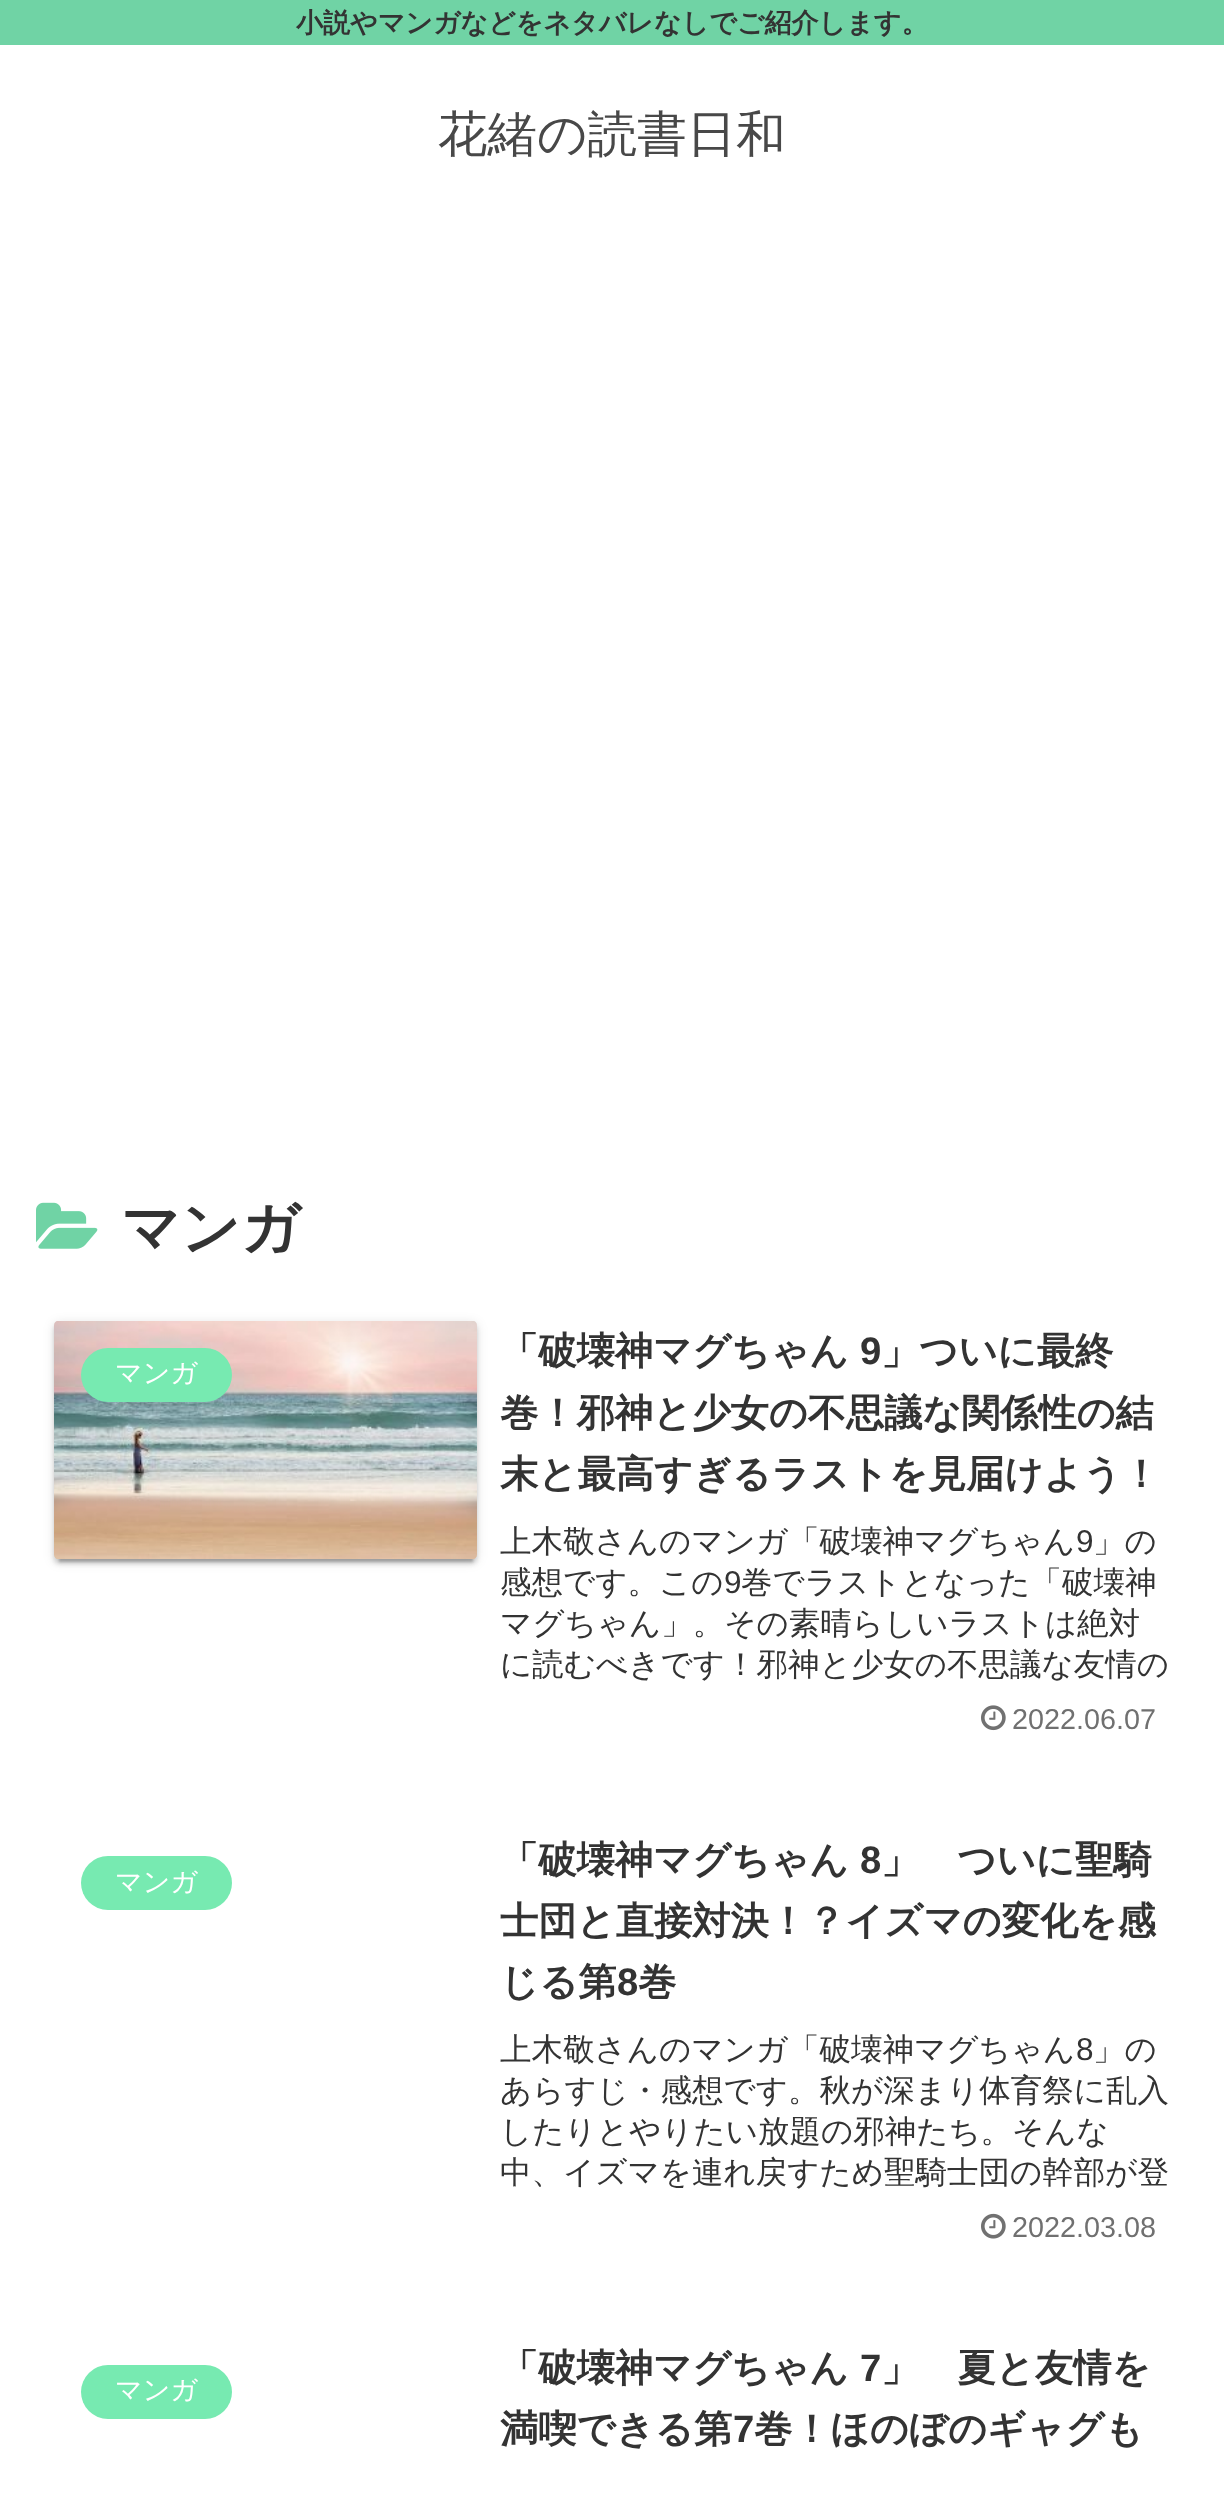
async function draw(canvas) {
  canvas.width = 1224;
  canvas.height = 2494;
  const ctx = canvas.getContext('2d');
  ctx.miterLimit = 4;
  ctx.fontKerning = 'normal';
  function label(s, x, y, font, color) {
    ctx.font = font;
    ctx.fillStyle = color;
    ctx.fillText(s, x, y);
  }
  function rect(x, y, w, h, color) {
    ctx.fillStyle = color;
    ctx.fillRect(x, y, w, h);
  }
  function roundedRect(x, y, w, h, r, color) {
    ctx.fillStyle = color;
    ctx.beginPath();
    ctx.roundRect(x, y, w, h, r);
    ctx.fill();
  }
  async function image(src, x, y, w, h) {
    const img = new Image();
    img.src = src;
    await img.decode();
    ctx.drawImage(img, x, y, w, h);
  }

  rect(0, 0, 1224, 2494, '#fff');
  rect(0, 0, 1224, 45, '#70d3a5');
  label('小説やマンガなどをネタバレなしでご紹介します。', 296, 32, 'bold 27px WenQuanYi Zen Hei', '#333');
  label('花緒の読書日和', 438, 151, '500 49.5px WenQuanYi Zen Hei', '#484848');
  await image('assets/img1.png', 36, 1202, 62, 47);
  label('マンガ', 121, 1248, 'bold 58.5px WenQuanYi Zen Hei', '#333');
  ctx.fillStyle = '#0000001f';
  ctx.filter = 'blur(5.5px)';
  ctx.beginPath();
  ctx.roundRect(54, 1323, 423, 239, 5);
  ctx.fill();
  ctx.filter = 'none';
  ctx.fillStyle = '#00000024';
  ctx.filter = 'blur(2px)';
  ctx.beginPath();
  ctx.roundRect(54, 1325, 423, 239, 5);
  ctx.fill();
  ctx.filter = 'none';
  ctx.fillStyle = '#00000033';
  ctx.filter = 'blur(1px)';
  ctx.beginPath();
  ctx.rect(59, 1332, 414, 230);
  ctx.fill();
  ctx.filter = 'none';
  await image('assets/img2.png', 54, 1321, 423, 238);
  roundedRect(81, 1348, 151, 54, 27, '#77eab1');
  label('マンガ', 115, 1382, '500 27px WenQuanYi Zen Hei', '#fff');
  label('「破壊神マグちゃん', 500, 1364, 'bold 38.25px WenQuanYi Zen Hei', '#333');
  label('9', 860, 1364, 'bold 38.25px Liberation Sans', '#333');
  label('」ついに最終', 881, 1364, 'bold 38.25px WenQuanYi Zen Hei', '#333');
  label('巻！邪神と少女の不思議な関係性の結', 500, 1426, 'bold 38.25px WenQuanYi Zen Hei', '#333');
  label('末と最高すぎるラストを見届けよう！', 500, 1487, 'bold 38.25px WenQuanYi Zen Hei', '#333');
  label('上木敬さんのマンガ「破壊神マグちゃん', 500, 1552, '500 31.5px WenQuanYi Zen Hei', '#333');
  label('9', 1076, 1552, '31.5px Liberation Sans', '#333');
  label('」の', 1093, 1552, '500 31.5px WenQuanYi Zen Hei', '#333');
  label('感想です。この', 500, 1593, '500 31.5px WenQuanYi Zen Hei', '#333');
  label('9', 724, 1593, '31.5px Liberation Sans', '#333');
  label('巻でラストとなった「破壊神', 741, 1593, '500 31.5px WenQuanYi Zen Hei', '#333');
  label('マグちゃん」。その素晴らしいラストは絶対', 500, 1634, '500 31.5px WenQuanYi Zen Hei', '#333');
  label('に読むべきです！邪神と少女の不思議な友情の', 500, 1675, '500 31.5px WenQuanYi Zen Hei', '#333');
  await image('assets/img3.png', 981, 1705, 25, 26);
  label('2022.06.07', 1012, 1729, '28.75px Liberation Sans', '#707070');
  roundedRect(81, 1856, 151, 54, 27, '#77eab1');
  label('マンガ', 115, 1891, '500 27px WenQuanYi Zen Hei', '#fff');
  label('「破壊神マグちゃん', 500, 1873, 'bold 38.25px WenQuanYi Zen Hei', '#333');
  label('8', 860, 1873, 'bold 38.25px Liberation Sans', '#333');
  label('」　ついに聖騎', 881, 1873, 'bold 38.25px WenQuanYi Zen Hei', '#333');
  label('士団と直接対決！？イズマの変化を感', 500, 1934, 'bold 38.25px WenQuanYi Zen Hei', '#333');
  label('じる第', 500, 1995, 'bold 38.25px WenQuanYi Zen Hei', '#333');
  label('8', 617, 1995, 'bold 38.25px Liberation Sans', '#333');
  label('巻', 638, 1995, 'bold 38.25px WenQuanYi Zen Hei', '#333');
  label('上木敬さんのマンガ「破壊神マグちゃん', 500, 2060, '500 31.5px WenQuanYi Zen Hei', '#333');
  label('8', 1076, 2060, '31.5px Liberation Sans', '#333');
  label('」の', 1093, 2060, '500 31.5px WenQuanYi Zen Hei', '#333');
  label('あらすじ・感想です。秋が深まり体育祭に乱入', 500, 2101, '500 31.5px WenQuanYi Zen Hei', '#333');
  label('したりとやりたい放題の邪神たち。そんな', 500, 2142, '500 31.5px WenQuanYi Zen Hei', '#333');
  label('中、イズマを連れ戻すため聖騎士団の幹部が登', 500, 2183, '500 31.5px WenQuanYi Zen Hei', '#333');
  await image('assets/img4.png', 981, 2213, 25, 26);
  label('2022.03.08', 1012, 2237, '28.75px Liberation Sans', '#707070');
  roundedRect(81, 2365, 151, 54, 27, '#77eab1');
  label('マンガ', 115, 2399, '500 27px WenQuanYi Zen Hei', '#fff');
  label('「破壊神マグちゃん', 500, 2381, 'bold 38.25px WenQuanYi Zen Hei', '#333');
  label('7', 860, 2381, 'bold 38.25px Liberation Sans', '#333');
  label('」　夏と友情を', 881, 2381, 'bold 38.25px WenQuanYi Zen Hei', '#333');
  label('満喫できる第', 500, 2442, 'bold 38.25px WenQuanYi Zen Hei', '#333');
  label('7', 733, 2442, 'bold 38.25px Liberation Sans', '#333');
  label('巻！ほのぼのギャグも', 754, 2442, 'bold 38.25px WenQuanYi Zen Hei', '#333');
}

draw(document.querySelector('canvas'));
